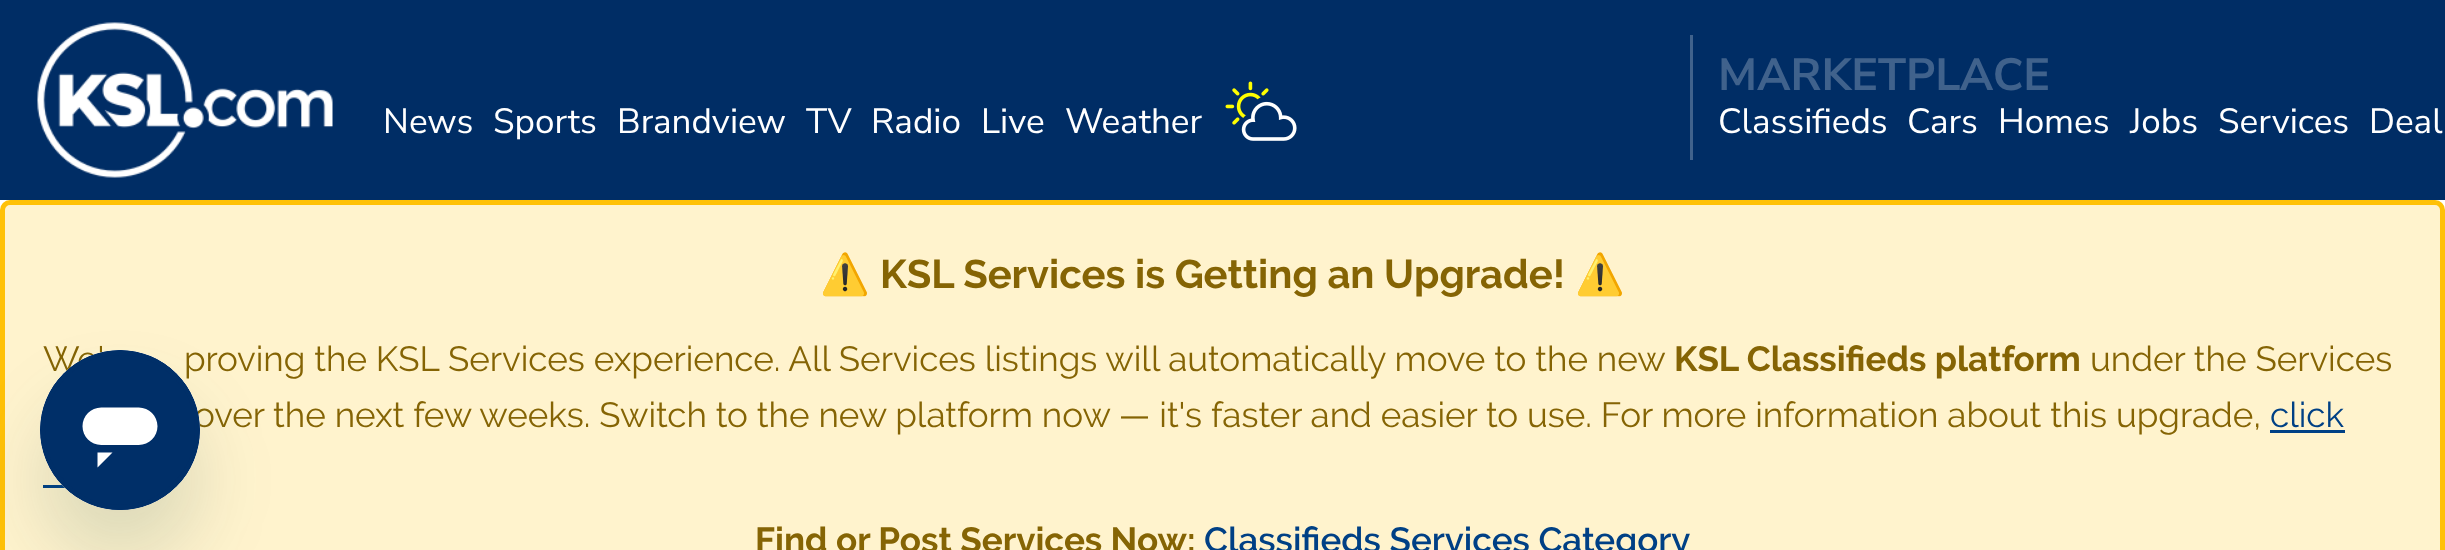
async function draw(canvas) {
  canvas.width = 2445;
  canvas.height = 550;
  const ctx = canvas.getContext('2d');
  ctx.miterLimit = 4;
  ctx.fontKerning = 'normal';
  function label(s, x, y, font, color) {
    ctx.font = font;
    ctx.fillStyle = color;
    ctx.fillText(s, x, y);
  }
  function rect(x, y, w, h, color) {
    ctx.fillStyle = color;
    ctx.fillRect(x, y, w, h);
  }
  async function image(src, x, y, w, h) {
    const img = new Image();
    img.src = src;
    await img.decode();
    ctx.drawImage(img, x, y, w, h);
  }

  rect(0, 0, 2445, 550, '#fff');
  rect(0, 0, 2445, 200, '#002d65');
  await image('assets/img1.png', 37, 22, 296, 156);
  label('News', 383, 133, '35px Nunito Sans', '#fff');
  label('Sports', 493, 133, '35px Nunito Sans', '#fff');
  label('Brandview', 617, 133, '35px Nunito Sans', '#fff');
  label('TV', 806, 133, '35px Nunito Sans', '#fff');
  label('Radio', 871, 133, '35px Nunito Sans', '#fff');
  label('Live', 981, 133, '35px Nunito Sans', '#fff');
  label('Weather', 1065, 133, '35px Nunito Sans', '#fff');
  await image('assets/img2.png', 1225, 81, 72, 60);
  rect(1690, 35, 3, 125, '#40628c');
  label('MARKETPLACE', 1718, 90, 'bold 45px Nunito Sans', '#40628c');
  label('Classifieds', 1718, 133, '35px Nunito Sans', '#fff');
  label('Cars', 1907, 133, '35px Nunito Sans', '#fff');
  label('Homes', 1998, 133, '35px Nunito Sans', '#fff');
  label('Jobs', 2130, 133, '35px Nunito Sans', '#fff');
  label('Services', 2218, 133, '35px Nunito Sans', '#fff');
  label('Deal', 2369, 133, '35px Nunito Sans', '#fff');
  ctx.fillStyle = '#fff3cd';
  ctx.beginPath();
  ctx.roundRect(2.5, 202.5, 2440, 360, 7.5);
  ctx.fill();
  ctx.strokeStyle = '#ffc107';
  ctx.lineWidth = 5;
  ctx.stroke();
  label('⚠️', 820, 288, '40px Noto Color Emoji', '#856404');
  label('KSL Services is Getting an Upgrade!', 880, 288, 'bold 40px Raleway', '#856404');
  label('⚠️', 1575, 288, '40px Noto Color Emoji', '#856404');
  label('We\'', 43, 371, '35px Raleway', '#856404');
  label('proving the KSL Services experience. All Services listings will automatically move to the new', 184, 371, '35px Raleway', '#856404');
  label('KSL Classifieds platform', 1674, 371, 'bold 35px Raleway', '#856404');
  label('under the Services', 2090, 371, '35px Raleway', '#856404');
  label('over the next few weeks. Switch to the new platform now — it\'s faster and easier to use. For more information about this upgrade,', 194, 427, '35px Raleway', '#856404');
  label('click', 2270, 427, '35px Raleway', '#004085');
  rect(2270, 430, 75, 3, '#004085');
  rect(43, 485, 22, 3, '#004085');
  label('Find or Post Services Now:', 755, 552, 'bold 35px Raleway', '#856404');
  label('Classifieds Services Category', 1204, 552, '600 35px Raleway', '#004085');
  ctx.fillStyle = '#17494d26';
  ctx.filter = 'blur(37.5px)';
  ctx.beginPath();
  ctx.roundRect(40, 400, 160, 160, 80);
  ctx.fill();
  ctx.filter = 'none';
  await image('assets/img3.png', 40, 350, 160, 160);
}

draw(document.querySelector('canvas'));
